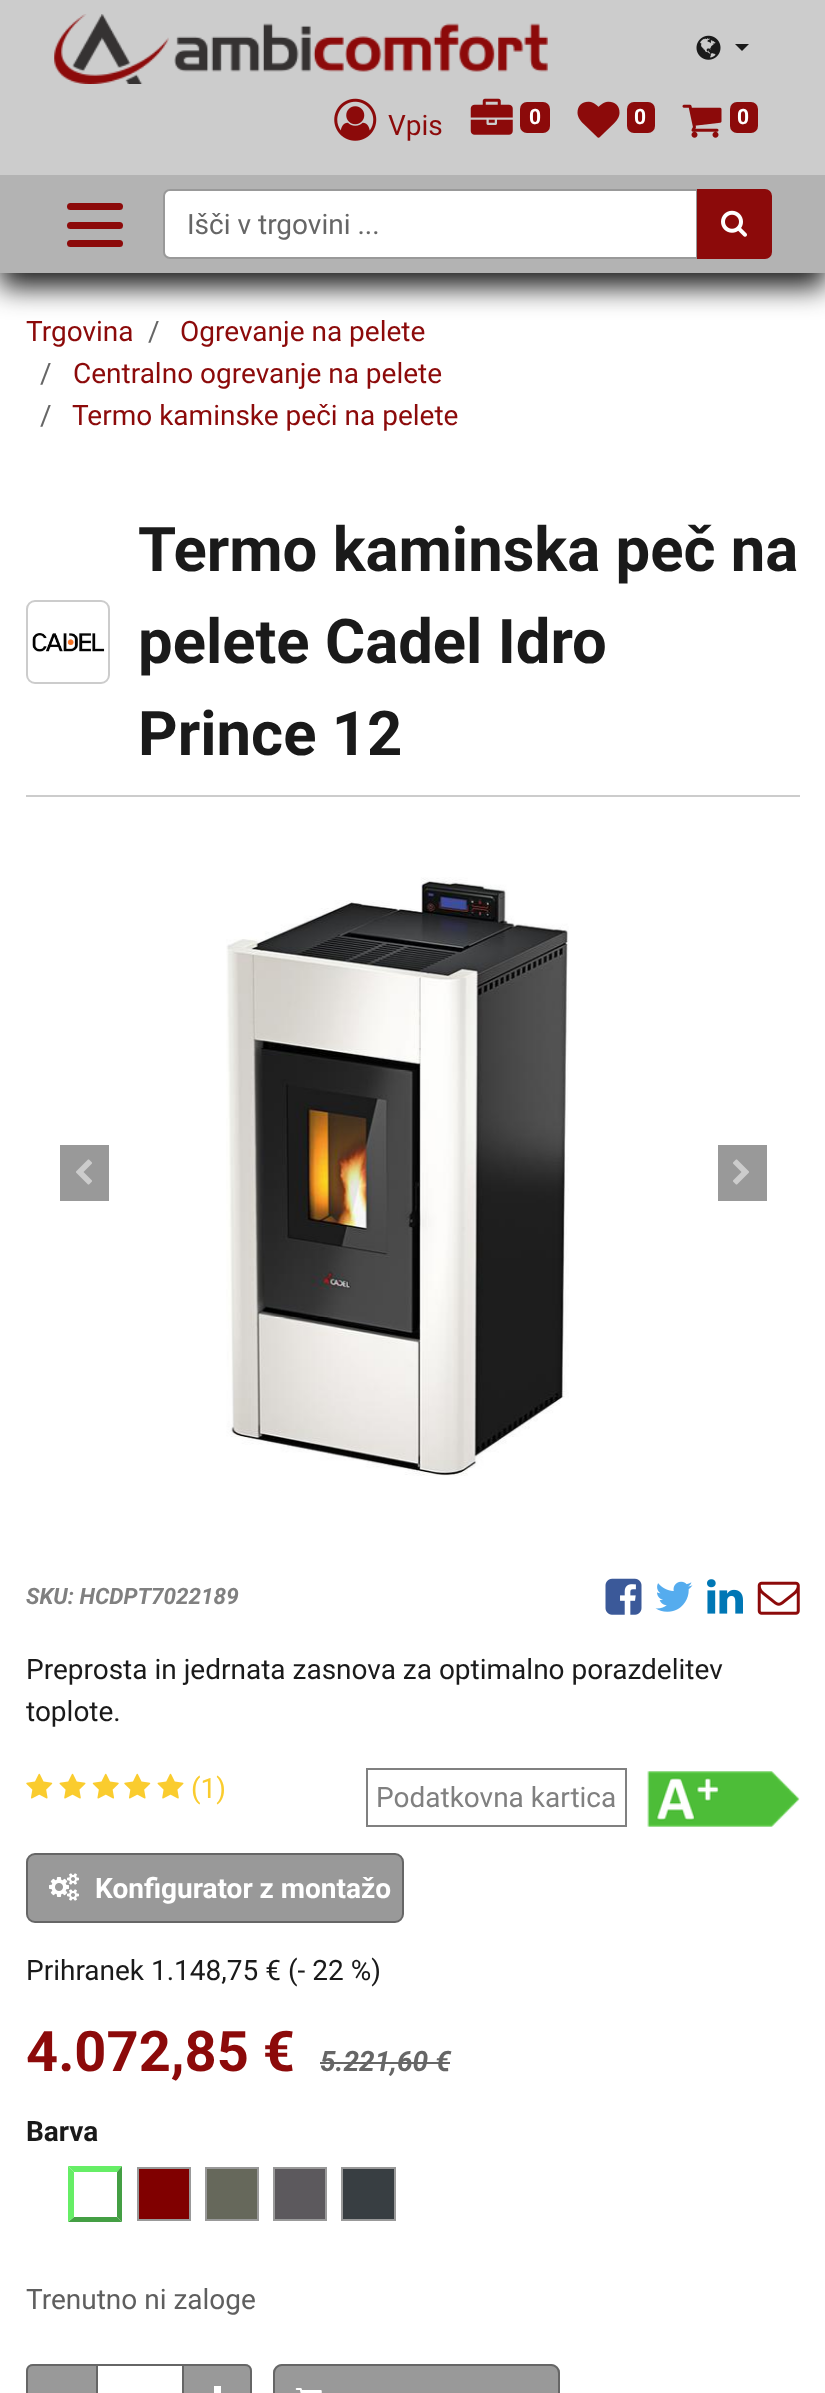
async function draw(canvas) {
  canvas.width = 825;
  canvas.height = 2393;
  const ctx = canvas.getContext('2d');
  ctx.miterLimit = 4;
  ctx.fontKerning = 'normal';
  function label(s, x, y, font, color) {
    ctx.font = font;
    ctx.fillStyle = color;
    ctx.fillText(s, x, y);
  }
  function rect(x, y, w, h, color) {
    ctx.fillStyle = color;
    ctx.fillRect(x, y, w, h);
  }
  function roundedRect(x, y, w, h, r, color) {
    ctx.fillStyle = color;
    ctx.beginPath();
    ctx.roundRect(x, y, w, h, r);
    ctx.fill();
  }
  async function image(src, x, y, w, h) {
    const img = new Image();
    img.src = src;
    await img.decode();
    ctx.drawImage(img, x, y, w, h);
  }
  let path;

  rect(0, 0, 825, 2393, '#fff');
  ctx.fillStyle = '#1a1a1a';
  ctx.filter = 'blur(14px)';
  ctx.beginPath();
  ctx.rect(0, 14, 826, 273);
  ctx.fill();
  ctx.filter = 'none';
  rect(0, 0, 825, 175, '#ccc');
  await image('assets/img1.png', 54, 14, 494, 70);
  await image('assets/img2.png', 696, 35, 25, 25);
  ctx.fillStyle = '#1a1a1a';
  path = new Path2D('M735 44H749L742 51Z');
  ctx.fill(path);
  await image('assets/img3.png', 334, 98, 43, 43);
  label('Vpis', 388, 135, '28px Roboto', '#8c0a0a');
  await image('assets/img4.png', 470, 98, 43, 37);
  roundedRect(520, 102, 30, 31, 7, '#8c0a0a');
  label('0', 529, 124, 'bold 21px Roboto', '#fff');
  await image('assets/img5.png', 577, 101, 43, 37);
  roundedRect(627, 102, 28, 31, 7, '#8c0a0a');
  label('0', 634, 124, 'bold 21px Roboto', '#fff');
  await image('assets/img6.png', 682, 104, 40, 34);
  roundedRect(730, 102, 28, 31, 7, '#8c0a0a');
  label('0', 737, 124, 'bold 21px Roboto', '#fff');
  rect(0, 175, 825, 98, '#b3b3b3');
  roundedRect(67, 203, 56, 7, 3.5, '#8c0a0a');
  roundedRect(67, 222, 56, 7, 3.5, '#8c0a0a');
  roundedRect(67, 240, 56, 7, 3.5, '#8c0a0a');
  ctx.fillStyle = '#fff';
  ctx.beginPath();
  ctx.roundRect(164, 190, 533, 68, [6, 0, 0, 6]);
  ctx.fill();
  ctx.strokeStyle = '#999';
  ctx.lineWidth = 2;
  ctx.stroke();
  label('Išči v trgovini ...', 187, 234, '28px Roboto', '#666');
  ctx.fillStyle = '#8c0a0a';
  ctx.beginPath();
  ctx.roundRect(698, 190, 73, 68, [0, 6, 6, 0]);
  ctx.fill();
  ctx.strokeStyle = '#8c0a0a';
  ctx.stroke();
  await image('assets/img7.png', 721, 210, 26, 27);
  label('Trgovina', 26, 341, '28px Roboto', '#8c0a0a');
  label('/', 148, 341, '28px Roboto', '#666');
  label('Ogrevanje na pelete', 180, 341, '28px Roboto', '#8c0a0a');
  label('/', 40, 383, '28px Roboto', '#666');
  label('Centralno ogrevanje na pelete', 73, 383, '28px Roboto', '#8c0a0a');
  label('/', 40, 425, '28px Roboto', '#666');
  label('Termo kaminske peči na pelete', 72, 425, '28px Roboto', '#8c0a0a');
  rect(26, 795, 774, 2, '#ccc');
  ctx.beginPath();
  ctx.roundRect(27, 601, 82, 82, 8);
  ctx.strokeStyle = '#ccc';
  ctx.stroke();
  await image('assets/img8.png', 32, 633, 73, 19);
  label('Termo kaminska peč na', 138, 571, 'bold 61.6px Roboto', '#1a1a1a');
  label('pelete Cadel Idro', 138, 663, 'bold 61.6px Roboto', '#1a1a1a');
  label('Prince 12', 138, 755, 'bold 61.6px Roboto', '#1a1a1a');
  rect(60, 1145, 49, 56, '#999');
  await image('assets/img9.png', 76, 1159, 16, 26);
  await image('assets/img10.png', 226, 877, 343, 599);
  rect(718, 1145, 49, 56, '#999');
  await image('assets/img11.png', 733, 1159, 16, 26);
  label('SKU: HCDPT7022189', 26, 1604, 'italic bold 22.5px Roboto', '#808080');
  await image('assets/img12.png', 605, 1578, 37, 37);
  await image('assets/img13.png', 655, 1581, 38, 31);
  await image('assets/img14.png', 707, 1579, 36, 35);
  await image('assets/img15.png', 757, 1581, 43, 34);
  label('Preprosta in jedrnata zasnova za optimalno porazdelitev', 26, 1679, '28px Roboto', '#1a1a1a');
  label('toplote.', 26, 1721, '28px Roboto', '#1a1a1a');
  await image('assets/img16.png', 26, 1773, 27, 26);
  await image('assets/img17.png', 59, 1773, 27, 26);
  await image('assets/img18.png', 92, 1773, 27, 26);
  await image('assets/img16.png', 124, 1773, 27, 26);
  await image('assets/img17.png', 157, 1773, 27, 26);
  label('(1)', 191, 1798, '28px Roboto', '#facc2e');
  ctx.strokeStyle = '#808080';
  ctx.strokeRect(367, 1769, 259, 57);
  label('Podatkovna kartica', 376, 1807, '28px Roboto', '#808080');
  await image('assets/img19.png', 647, 1771, 153, 56);
  ctx.fillStyle = '#999';
  ctx.beginPath();
  ctx.roundRect(27, 1854, 376, 68, 8);
  ctx.fill();
  ctx.strokeStyle = '#666';
  ctx.stroke();
  await image('assets/img20.png', 49, 1873, 30, 28);
  label('Konfigurator z montažo', 95, 1898, 'bold 28px Roboto', '#fff');
  label('Prihranek 1.148,75 € (- 22 %)', 26, 1980, '28px Roboto', '#1a1a1a');
  label('4.072,85 €', 26, 2071, 'bold 56px Roboto', '#8c0a0a');
  label('5.221,60 €', 320, 2071, 'italic bold 28px Roboto', '#666');
  rect(320, 2062, 130, 2, '#666');
  label('Barva', 26, 2141, 'bold 28px Roboto', '#1a1a1a');
  ctx.fillStyle = '#6e6';
  path = new Path2D('M68 2166H122L117 2172H74Z');
  ctx.fill(path);
  ctx.fillStyle = '#449f44';
  path = new Path2D('M122 2166V2222L117 2217V2172Z');
  ctx.fill(path);
  path = new Path2D('M122 2222H68L74 2217H117Z');
  ctx.fill(path);
  ctx.fillStyle = '#6e6';
  path = new Path2D('M68 2222V2166L74 2172V2217Z');
  ctx.fill(path);
  ctx.fillStyle = '#800000';
  ctx.beginPath();
  ctx.rect(138, 2168, 52, 52);
  ctx.fill();
  ctx.strokeStyle = '#999';
  ctx.stroke();
  ctx.fillStyle = '#66685b';
  ctx.beginPath();
  ctx.rect(206, 2168, 52, 52);
  ctx.fill();
  ctx.stroke();
  ctx.fillStyle = '#5c595d';
  ctx.beginPath();
  ctx.rect(274, 2168, 52, 52);
  ctx.fill();
  ctx.stroke();
  ctx.fillStyle = '#383e42';
  ctx.beginPath();
  ctx.rect(342, 2168, 53, 52);
  ctx.fill();
  ctx.stroke();
  label('Trenutno ni zaloge', 26, 2309, '28px Roboto', '#5f5f5f');
  ctx.strokeStyle = '#666';
  ctx.strokeRect(97, 2365, 86, 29);
  ctx.fillStyle = '#999';
  path = new Path2D('M33 2364H98V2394H26V2371C26 2367 29 2364 33 2364Z');
  ctx.fill(path);
  path = new Path2D('M33 2365H97V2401H33C29.5 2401 27 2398.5 27 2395V2371C27 2367.5 29.5 2365 33 2365Z');
  ctx.stroke(path);
  path = new Path2D('M182 2364H245C249 2364 252 2367 252 2371V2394H182Z');
  ctx.fill(path);
  path = new Path2D('M183 2365H245C248.5 2365 251 2367.5 251 2371V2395C251 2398.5 248.5 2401 245 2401H183Z');
  ctx.stroke(path);
  rect(214, 2386, 7, 7, '#fff');
  ctx.fillStyle = '#999';
  path = new Path2D('M282 2364H551C556 2364 560 2368 560 2373V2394H273V2373C273 2368 277 2364 282 2364Z');
  ctx.fill(path);
  ctx.beginPath();
  ctx.roundRect(274, 2365, 285, 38, 8);
  ctx.stroke();
  await image('assets/img21.png', 295, 2388, 27, 5);
}

draw(document.querySelector('canvas'));
